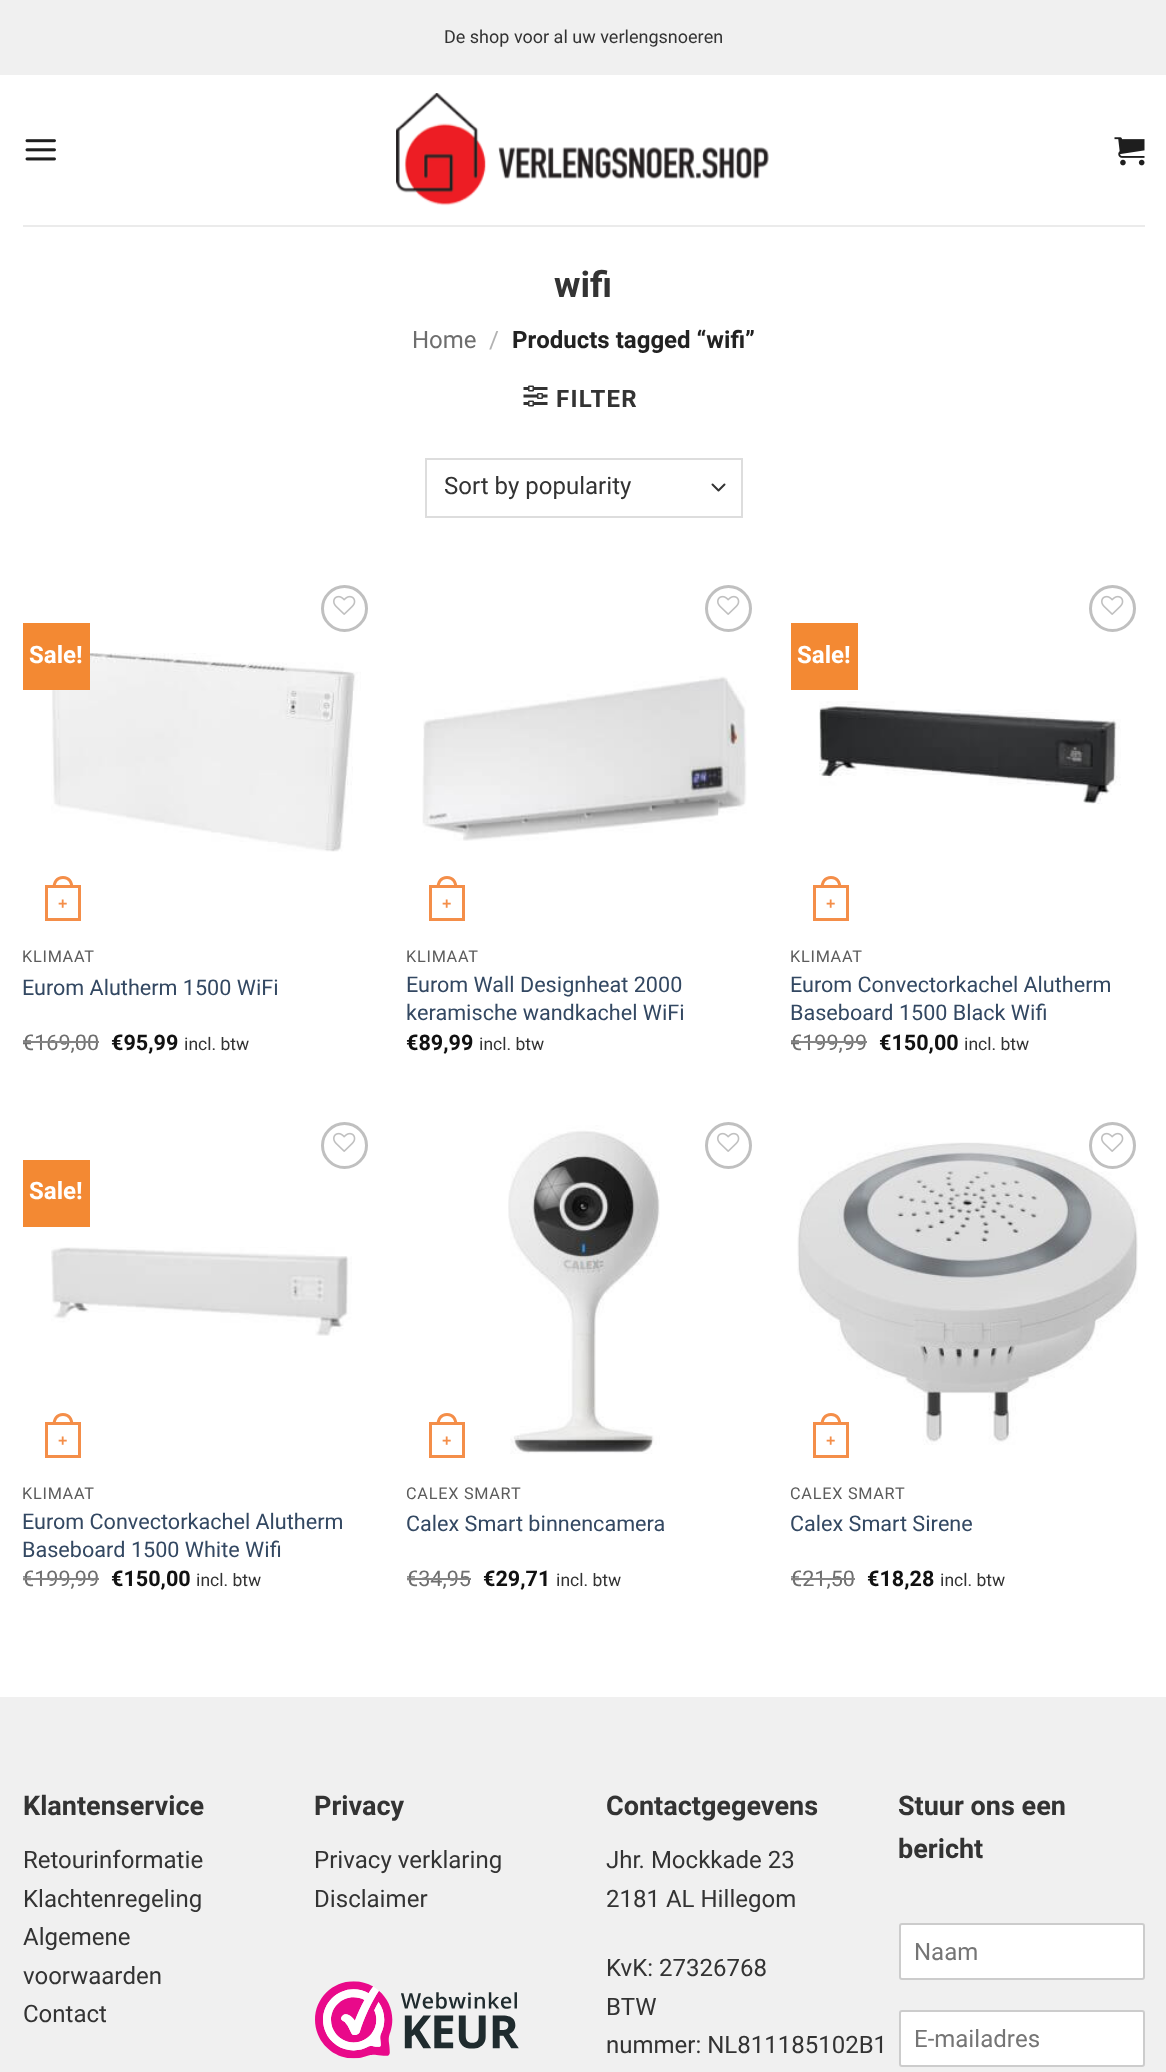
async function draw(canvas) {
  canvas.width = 1166;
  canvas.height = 2072;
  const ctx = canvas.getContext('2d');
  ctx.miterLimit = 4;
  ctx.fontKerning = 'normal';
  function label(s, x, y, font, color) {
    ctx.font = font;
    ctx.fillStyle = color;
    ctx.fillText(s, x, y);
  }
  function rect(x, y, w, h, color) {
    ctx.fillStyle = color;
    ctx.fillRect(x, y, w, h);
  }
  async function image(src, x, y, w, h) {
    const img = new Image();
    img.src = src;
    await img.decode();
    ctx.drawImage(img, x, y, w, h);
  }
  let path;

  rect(0, 0, 1166, 2072, '#fff');
  rect(0, 0, 1166, 75, '#f0f0f0');
  label('De shop voor al uw verlengsnoeren', 444, 43, '18px Heebo', '#333');
  await image('assets/img1.png', 25, 139, 31, 22);
  await image('assets/img2.png', 396, 93, 373, 113);
  await image('assets/img3.png', 1114, 137, 31, 29);
  rect(23, 225, 1122, 2, '#ebebeb');
  label('wifi', 554, 297, 'bold 36px Heebo', '#333');
  label('Home', 412, 348, '24px Heebo', '#6e6e6e');
  label('/', 489, 348, '24px Heebo', '#b2b2b2');
  label('Products tagged “wifi”', 512, 348, 'bold 24px Heebo', '#222');
  await image('assets/img4.png', 523, 385, 25, 22);
  ctx.letterSpacing = '1.25px';
  label('FILTER', 556, 407, 'bold 24px Heebo', '#333');
  path = new Path2D('M712.5 484.5L718.5 490.5L724.5 484.5');
  ctx.strokeStyle = '#333';
  ctx.lineWidth = 2;
  ctx.lineCap = 'round';
  ctx.lineJoin = 'round';
  ctx.stroke(path);
  ctx.strokeStyle = '#ddd';
  ctx.lineJoin = 'miter';
  ctx.strokeRect(426, 459, 316, 58);
  ctx.letterSpacing = '0px';
  label('Sort by popularity', 444, 494, '24px Heebo', '#333');
  await image('assets/img6.png', 51, 644, 310, 208);
  rect(23, 623, 67, 67, '#f38933');
  label('Sale!', 29, 663, 'bold 24px Heebo', '#fff');
  ctx.beginPath();
  ctx.arc(344.5, 608.5, 22, 0, 2 * Math.PI);
  ctx.strokeStyle = '#c0c0c0';
  ctx.lineWidth = 3;
  ctx.stroke();
  await image('assets/img5.png', 333, 595, 23, 20);
  ctx.strokeStyle = '#f48e49';
  ctx.strokeRect(46.5, 886.5, 33, 33);
  ctx.fillStyle = '#f48e49';
  path = new Path2D('M63 876C70 876 73.5 881.5 73.5 888H52.5C52.5 881.5 56 876 63 876ZM63 879C68.5 879 70.5 883.5 70.5 888H55.5C55.5 883.5 57.5 879 63 879Z');
  ctx.fill(path, 'evenodd');
  label('+', 58, 909, 'bold 16px Liberation Sans', '#f48e49');
  ctx.letterSpacing = '0.75px';
  label('KLIMAAT', 22, 962, '16.25px Heebo', '#5c5c5c');
  ctx.letterSpacing = '0px';
  label('Eurom Alutherm 1500 WiFi', 22, 995, '21.6px Heebo', '#334862');
  label('€169,00', 22, 1050, '21.6px Heebo', '#6e6e6e');
  rect(23, 1041, 76, 2, '#858585');
  label('€95,99', 111, 1050, 'bold 21.6px Heebo', '#111');
  label('incl. btw', 184, 1050, '17.5px Heebo', '#333');
  ctx.beginPath();
  ctx.arc(728.5, 608.5, 22, 0, 2 * Math.PI);
  ctx.strokeStyle = '#c0c0c0';
  ctx.stroke();
  await image('assets/img5.png', 717, 595, 23, 20);
  await image('assets/img7.png', 422, 676, 325, 165);
  ctx.strokeStyle = '#f48e49';
  ctx.strokeRect(430.5, 886.5, 33, 33);
  ctx.fillStyle = '#f48e49';
  path = new Path2D('M447 876C454 876 457.5 881.5 457.5 888H436.5C436.5 881.5 440 876 447 876ZM447 879C452.5 879 454.5 883.5 454.5 888H439.5C439.5 883.5 441.5 879 447 879Z');
  ctx.fill(path, 'evenodd');
  label('+', 442, 909, 'bold 16px Liberation Sans', '#f48e49');
  ctx.letterSpacing = '0.75px';
  label('KLIMAAT', 406, 962, '16.25px Heebo', '#5c5c5c');
  ctx.letterSpacing = '0px';
  label('Eurom Wall Designheat 2000', 406, 992, '21.6px Heebo', '#334862');
  label('keramische wandkachel WiFi', 406, 1020, '21.6px Heebo', '#334862');
  label('€89,99', 406, 1050, 'bold 21.6px Heebo', '#111');
  label('incl. btw', 479, 1050, '17.5px Heebo', '#333');
  rect(791, 623, 67, 67, '#f38933');
  label('Sale!', 797, 663, 'bold 24px Heebo', '#fff');
  ctx.beginPath();
  ctx.arc(1112.5, 608.5, 22, 0, 2 * Math.PI);
  ctx.strokeStyle = '#c0c0c0';
  ctx.stroke();
  await image('assets/img5.png', 1101, 595, 23, 20);
  await image('assets/img8.png', 819, 701, 302, 103);
  ctx.strokeStyle = '#f48e49';
  ctx.strokeRect(814.5, 886.5, 33, 33);
  ctx.fillStyle = '#f48e49';
  path = new Path2D('M831 876C838 876 841.5 881.5 841.5 888H820.5C820.5 881.5 824 876 831 876ZM831 879C836.5 879 838.5 883.5 838.5 888H823.5C823.5 883.5 825.5 879 831 879Z');
  ctx.fill(path, 'evenodd');
  label('+', 826, 909, 'bold 16px Liberation Sans', '#f48e49');
  ctx.letterSpacing = '0.75px';
  label('KLIMAAT', 790, 962, '16.25px Heebo', '#5c5c5c');
  ctx.letterSpacing = '0px';
  label('Eurom Convectorkachel Alutherm', 790, 992, '21.6px Heebo', '#334862');
  label('Baseboard 1500 Black Wifi', 790, 1020, '21.6px Heebo', '#334862');
  label('€199,99', 790, 1050, '21.6px Heebo', '#6e6e6e');
  rect(791, 1041, 76, 2, '#858585');
  label('€150,00', 879, 1050, 'bold 21.6px Heebo', '#111');
  label('incl. btw', 964, 1050, '17.5px Heebo', '#333');
  rect(23, 1160, 67, 67, '#f38933');
  label('Sale!', 29, 1199, 'bold 24px Heebo', '#fff');
  ctx.beginPath();
  ctx.arc(344.5, 1145.5, 22, 0, 2 * Math.PI);
  ctx.strokeStyle = '#c0c0c0';
  ctx.stroke();
  await image('assets/img5.png', 333, 1132, 23, 20);
  await image('assets/img9.png', 51, 1247, 301, 89);
  ctx.strokeStyle = '#f48e49';
  ctx.strokeRect(46.5, 1423.5, 33, 33);
  ctx.fillStyle = '#f48e49';
  path = new Path2D('M63 1413C70 1413 73.5 1418.5 73.5 1425H52.5C52.5 1418.5 56 1413 63 1413ZM63 1416C68.5 1416 70.5 1420.5 70.5 1425H55.5C55.5 1420.5 57.5 1416 63 1416Z');
  ctx.fill(path, 'evenodd');
  label('+', 58, 1446, 'bold 16px Liberation Sans', '#f48e49');
  ctx.letterSpacing = '0.75px';
  label('KLIMAAT', 22, 1499, '16.25px Heebo', '#5c5c5c');
  ctx.letterSpacing = '0px';
  label('Eurom Convectorkachel Alutherm', 22, 1529, '21.6px Heebo', '#334862');
  label('Baseboard 1500 White Wifi', 22, 1557, '21.6px Heebo', '#334862');
  label('€199,99', 22, 1586, '21.6px Heebo', '#6e6e6e');
  rect(23, 1578, 76, 2, '#858585');
  label('€150,00', 111, 1586, 'bold 21.6px Heebo', '#111');
  label('incl. btw', 196, 1586, '17.5px Heebo', '#333');
  ctx.strokeRect(430.5, 1423.5, 33, 33);
  ctx.fillStyle = '#f48e49';
  path = new Path2D('M447 1413C454 1413 457.5 1418.5 457.5 1425H436.5C436.5 1418.5 440 1413 447 1413ZM447 1416C452.5 1416 454.5 1420.5 454.5 1425H439.5C439.5 1420.5 441.5 1416 447 1416Z');
  ctx.fill(path, 'evenodd');
  label('+', 442, 1446, 'bold 16px Liberation Sans', '#f48e49');
  await image('assets/img10.png', 508, 1125, 152, 329);
  ctx.beginPath();
  ctx.arc(728.5, 1145.5, 22, 0, 2 * Math.PI);
  ctx.strokeStyle = '#c0c0c0';
  ctx.stroke();
  await image('assets/img5.png', 717, 1132, 23, 20);
  ctx.letterSpacing = '0.75px';
  label('CALEX SMART', 406, 1499, '16.25px Heebo', '#5c5c5c');
  ctx.letterSpacing = '0px';
  label('Calex Smart binnencamera', 406, 1531, '21.6px Heebo', '#334862');
  label('€34,95', 406, 1586, '21.6px Heebo', '#6e6e6e');
  rect(407, 1578, 64, 2, '#858585');
  label('€29,71', 483, 1586, 'bold 21.6px Heebo', '#111');
  label('incl. btw', 556, 1586, '17.5px Heebo', '#333');
  await image('assets/img11.png', 797, 1142, 341, 303);
  ctx.beginPath();
  ctx.arc(1112.5, 1145.5, 22, 0, 2 * Math.PI);
  ctx.stroke();
  await image('assets/img5.png', 1101, 1132, 23, 20);
  ctx.strokeStyle = '#f48e49';
  ctx.strokeRect(814.5, 1423.5, 33, 33);
  ctx.fillStyle = '#f48e49';
  path = new Path2D('M831 1413C838 1413 841.5 1418.5 841.5 1425H820.5C820.5 1418.5 824 1413 831 1413ZM831 1416C836.5 1416 838.5 1420.5 838.5 1425H823.5C823.5 1420.5 825.5 1416 831 1416Z');
  ctx.fill(path, 'evenodd');
  label('+', 826, 1446, 'bold 16px Liberation Sans', '#f48e49');
  ctx.letterSpacing = '0.75px';
  label('CALEX SMART', 790, 1499, '16.25px Heebo', '#5c5c5c');
  ctx.letterSpacing = '0px';
  label('Calex Smart Sirene', 790, 1531, '21.6px Heebo', '#334862');
  label('€21,50', 790, 1586, '21.6px Heebo', '#6e6e6e');
  rect(791, 1578, 64, 2, '#858585');
  label('€18,28', 867, 1586, 'bold 21.6px Heebo', '#111');
  label('incl. btw', 940, 1586, '17.5px Heebo', '#333');
  rect(0, 1697, 1166, 375, '#f0f0f0');
  label('Klantenservice', 23, 1815, 'bold 27px Heebo', '#333');
  label('Retourinformatie', 23, 1868, '24px Heebo', '#333');
  label('Klachtenregeling', 23, 1907, '24px Heebo', '#333');
  label('Algemene', 23, 1945, '24px Heebo', '#333');
  label('voorwaarden', 23, 1984, '24px Heebo', '#333');
  label('Contact', 23, 2022, '24px Heebo', '#333');
  label('Privacy', 314, 1815, 'bold 27px Heebo', '#333');
  label('Privacy verklaring', 314, 1868, '24px Heebo', '#333');
  label('Disclaimer', 314, 1907, '24px Heebo', '#333');
  await image('assets/img12.png', 315, 1981, 204, 78);
  label('Contactgegevens', 606, 1815, 'bold 27px Heebo', '#333');
  label('Jhr. Mockkade 23', 606, 1868, '24px Heebo', '#333');
  label('2181 AL Hillegom', 606, 1907, '24px Heebo', '#333');
  label('KvK: 27326768', 606, 1976, '24px Heebo', '#333');
  label('BTW', 606, 2015, '24px Heebo', '#333');
  label('nummer: NL811185102B1', 606, 2053, '24px Heebo', '#333');
  label('Stuur ons een', 898, 1815, 'bold 27px Heebo', '#333');
  label('bericht', 898, 1858, 'bold 27px Heebo', '#333');
  ctx.fillStyle = '#fff';
  ctx.beginPath();
  ctx.roundRect(900, 1924, 244, 55, 2);
  ctx.fill();
  ctx.strokeStyle = '#ccc';
  ctx.lineWidth = 2;
  ctx.stroke();
  label('Naam', 914, 1960, '24px Heebo', '#757575');
  ctx.fillStyle = '#fff';
  ctx.beginPath();
  ctx.roundRect(900, 2011, 244, 55, 2);
  ctx.fill();
  ctx.stroke();
  label('E-mailadres', 914, 2047, '24px Heebo', '#757575');
}

draw(document.querySelector('canvas'));
